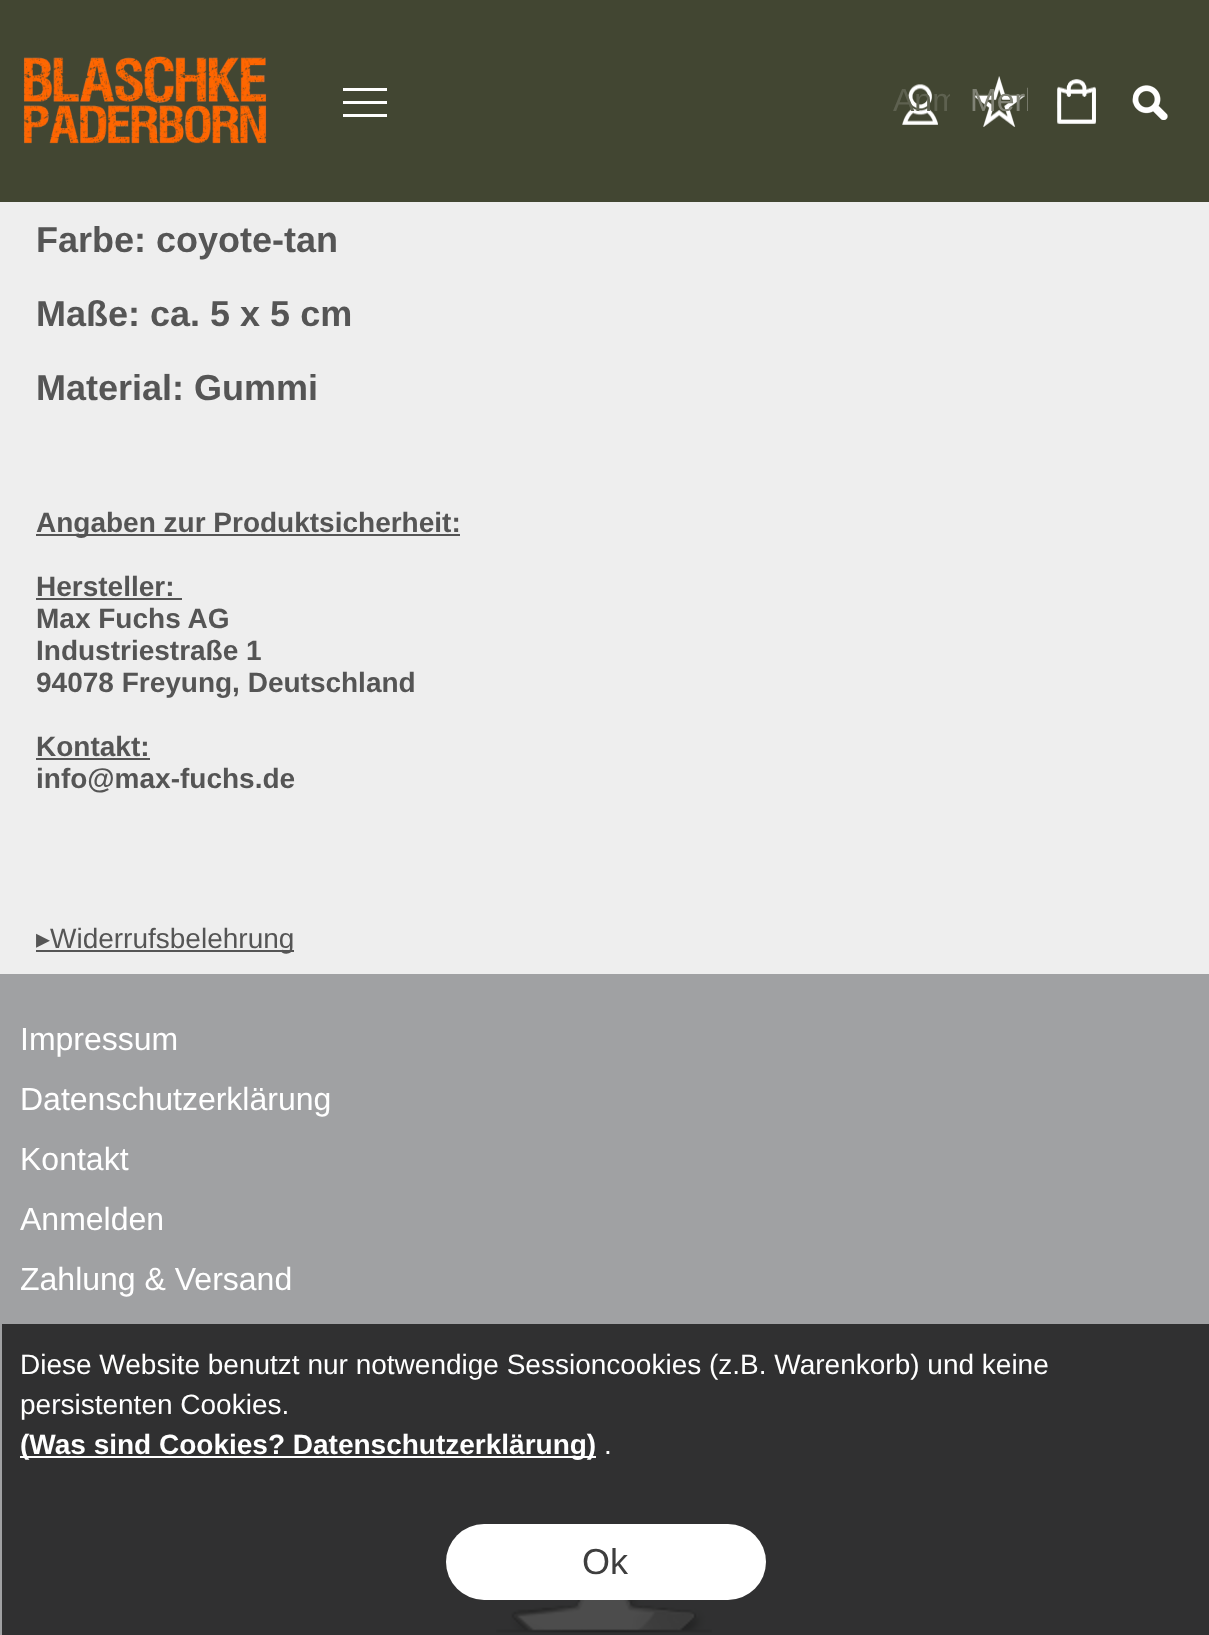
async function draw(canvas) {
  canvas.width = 1209;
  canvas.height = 1635;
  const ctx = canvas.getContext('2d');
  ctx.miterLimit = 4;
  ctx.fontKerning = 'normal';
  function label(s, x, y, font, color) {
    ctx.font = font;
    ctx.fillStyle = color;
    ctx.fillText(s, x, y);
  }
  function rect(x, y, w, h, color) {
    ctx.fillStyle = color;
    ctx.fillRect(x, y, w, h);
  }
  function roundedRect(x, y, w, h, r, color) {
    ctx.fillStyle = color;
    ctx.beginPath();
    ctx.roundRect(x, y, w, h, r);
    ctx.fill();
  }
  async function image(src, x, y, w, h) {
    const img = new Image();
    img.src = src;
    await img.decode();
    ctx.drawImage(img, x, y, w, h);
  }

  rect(0, 0, 1209, 1635, '#eee');
  rect(0, 0, 1209, 202, '#424632');
  await image('assets/img1.png', 23, 56, 244, 88);
  await image('assets/img2.png', 343, 88, 44, 29);
  await image('assets/img3.png', 902, 84, 36, 41);
  ctx.save();
  ctx.beginPath();
  ctx.rect(892, 76, 58, 58);
  ctx.clip();
  label('Anm', 893, 111, '32px Liberation Sans', '#5e6150');
  ctx.restore();
  await image('assets/img4.png', 973, 76, 52, 51);
  ctx.save();
  ctx.beginPath();
  ctx.rect(970, 76, 58, 58);
  ctx.clip();
  label('Merk', 970, 111, '32px Liberation Sans', '#808275');
  ctx.restore();
  await image('assets/img5.png', 1057, 79, 39, 45);
  await image('assets/img6.png', 1132, 85, 36, 35);
  label('Farbe: coyote-tan', 36, 252, 'bold 36px Liberation Sans', '#555');
  label('Maße: ca. 5 x 5 cm', 36, 326, 'bold 36px Liberation Sans', '#555');
  label('Material: Gummi', 36, 400, 'bold 36px Liberation Sans', '#555');
  rect(36, 534, 424, 2, '#555');
  label('Angaben zur Produktsicherheit:', 36, 532, 'bold 28px Liberation Sans', '#555');
  label('Hersteller:', 36, 596, 'bold 28px Liberation Sans', '#555');
  rect(36, 598, 146, 2, '#555');
  label('Max Fuchs AG', 36, 628, 'bold 28px Liberation Sans', '#555');
  label('Industriestraße 1', 36, 660, 'bold 28px Liberation Sans', '#555');
  label('94078 Freyung, Deutschland', 36, 692, 'bold 28px Liberation Sans', '#555');
  label('Kontakt:', 36, 756, 'bold 28px Liberation Sans', '#555');
  rect(36, 758, 114, 2, '#555');
  label('info@max-fuchs.de', 36, 788, 'bold 28px Liberation Sans', '#555');
  label('▸', 36, 948, '28px DejaVu Sans', '#555');
  rect(36, 950, 258, 2, '#555');
  label('Widerrufsbelehrung', 50, 948, '28px Liberation Sans', '#555');
  rect(0, 974, 1209, 661, '#a0a1a3');
  label('Impressum', 20, 1050, '32px Liberation Sans', '#fff');
  label('Datenschutzerklärung', 20, 1110, '32px Liberation Sans', '#fff');
  label('Kontakt', 20, 1170, '32px Liberation Sans', '#fff');
  label('Anmelden', 20, 1230, '32px Liberation Sans', '#fff');
  label('Zahlung & Versand', 20, 1290, '32px Liberation Sans', '#fff');
  await image('assets/img7.png', 496, 1600, 216, 33);
  rect(2, 1324, 1207, 311, '#000000b3');
  label('Diese Website benutzt nur notwendige Sessioncookies (z.B. Warenkorb) und keine', 20, 1374, '28px Liberation Sans', '#fff');
  label('persistenten Cookies.', 20, 1414, '28px Liberation Sans', '#fff');
  rect(20, 1456, 576, 2, '#fff');
  label('(Was sind Cookies? Datenschutzerklärung)', 20, 1454, 'bold 28px Liberation Sans', '#fff');
  label('.', 604, 1454, '28px Liberation Sans', '#fff');
  roundedRect(446, 1524, 320, 76, 38, '#fff');
  label('Ok', 582, 1574, '36px Liberation Sans', '#3e3e3e');
}

draw(document.querySelector('canvas'));
